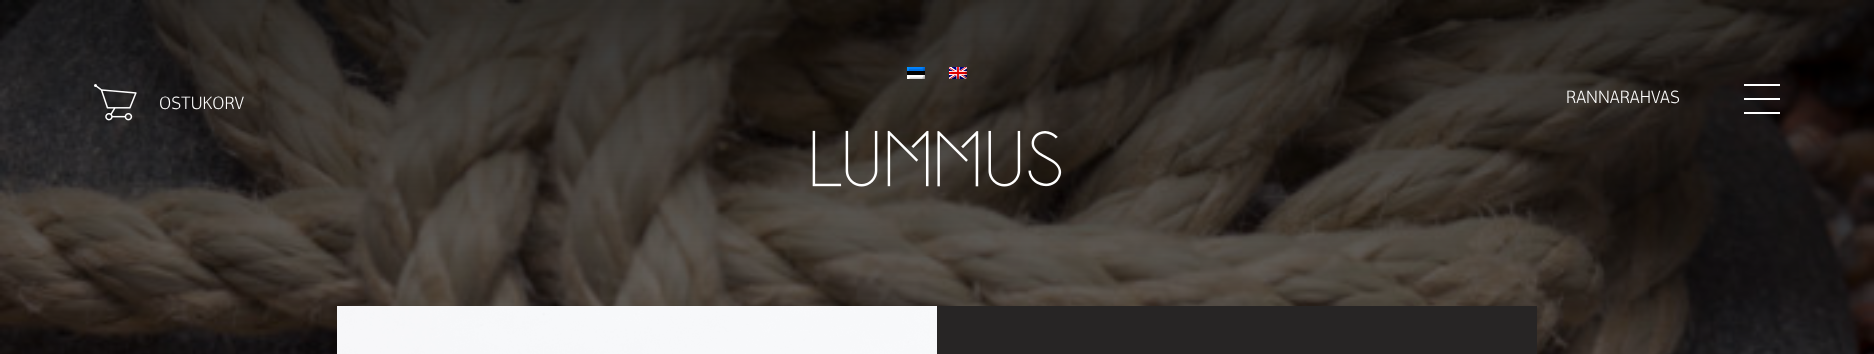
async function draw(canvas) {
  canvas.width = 1874;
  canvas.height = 354;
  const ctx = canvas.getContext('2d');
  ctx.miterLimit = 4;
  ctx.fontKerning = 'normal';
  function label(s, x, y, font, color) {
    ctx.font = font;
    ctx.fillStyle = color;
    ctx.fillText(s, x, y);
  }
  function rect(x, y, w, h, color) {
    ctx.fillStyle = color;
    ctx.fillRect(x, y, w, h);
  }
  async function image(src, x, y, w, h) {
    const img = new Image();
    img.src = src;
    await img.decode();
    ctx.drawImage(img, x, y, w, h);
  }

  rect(0, 0, 1874, 354, '#fff');
  await image('assets/img1.png', 0, 0, 1874, 354);
  await image('assets/img2.png', 907, 67, 18, 12);
  await image('assets/img3.png', 949, 67, 18, 12);
  await image('assets/img4.png', 94, 84, 43, 37);
  label('OSTUKORV', 159, 109, '300 18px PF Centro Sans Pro', '#fff');
  label('RANNARAHVAS', 1566, 103, '300 18px PF Centro Sans Pro', '#fff');
  rect(1744, 84, 36, 2, '#fff');
  rect(1744, 98, 36, 2, '#fff');
  rect(1744, 112, 36, 2, '#fff');
  await image('assets/img5.png', 812, 130, 250, 57);
  await image('assets/img6.png', 337, 306, 600, 48);
  rect(937, 306, 600, 48, '#272525');
}

draw(document.querySelector('canvas'));
